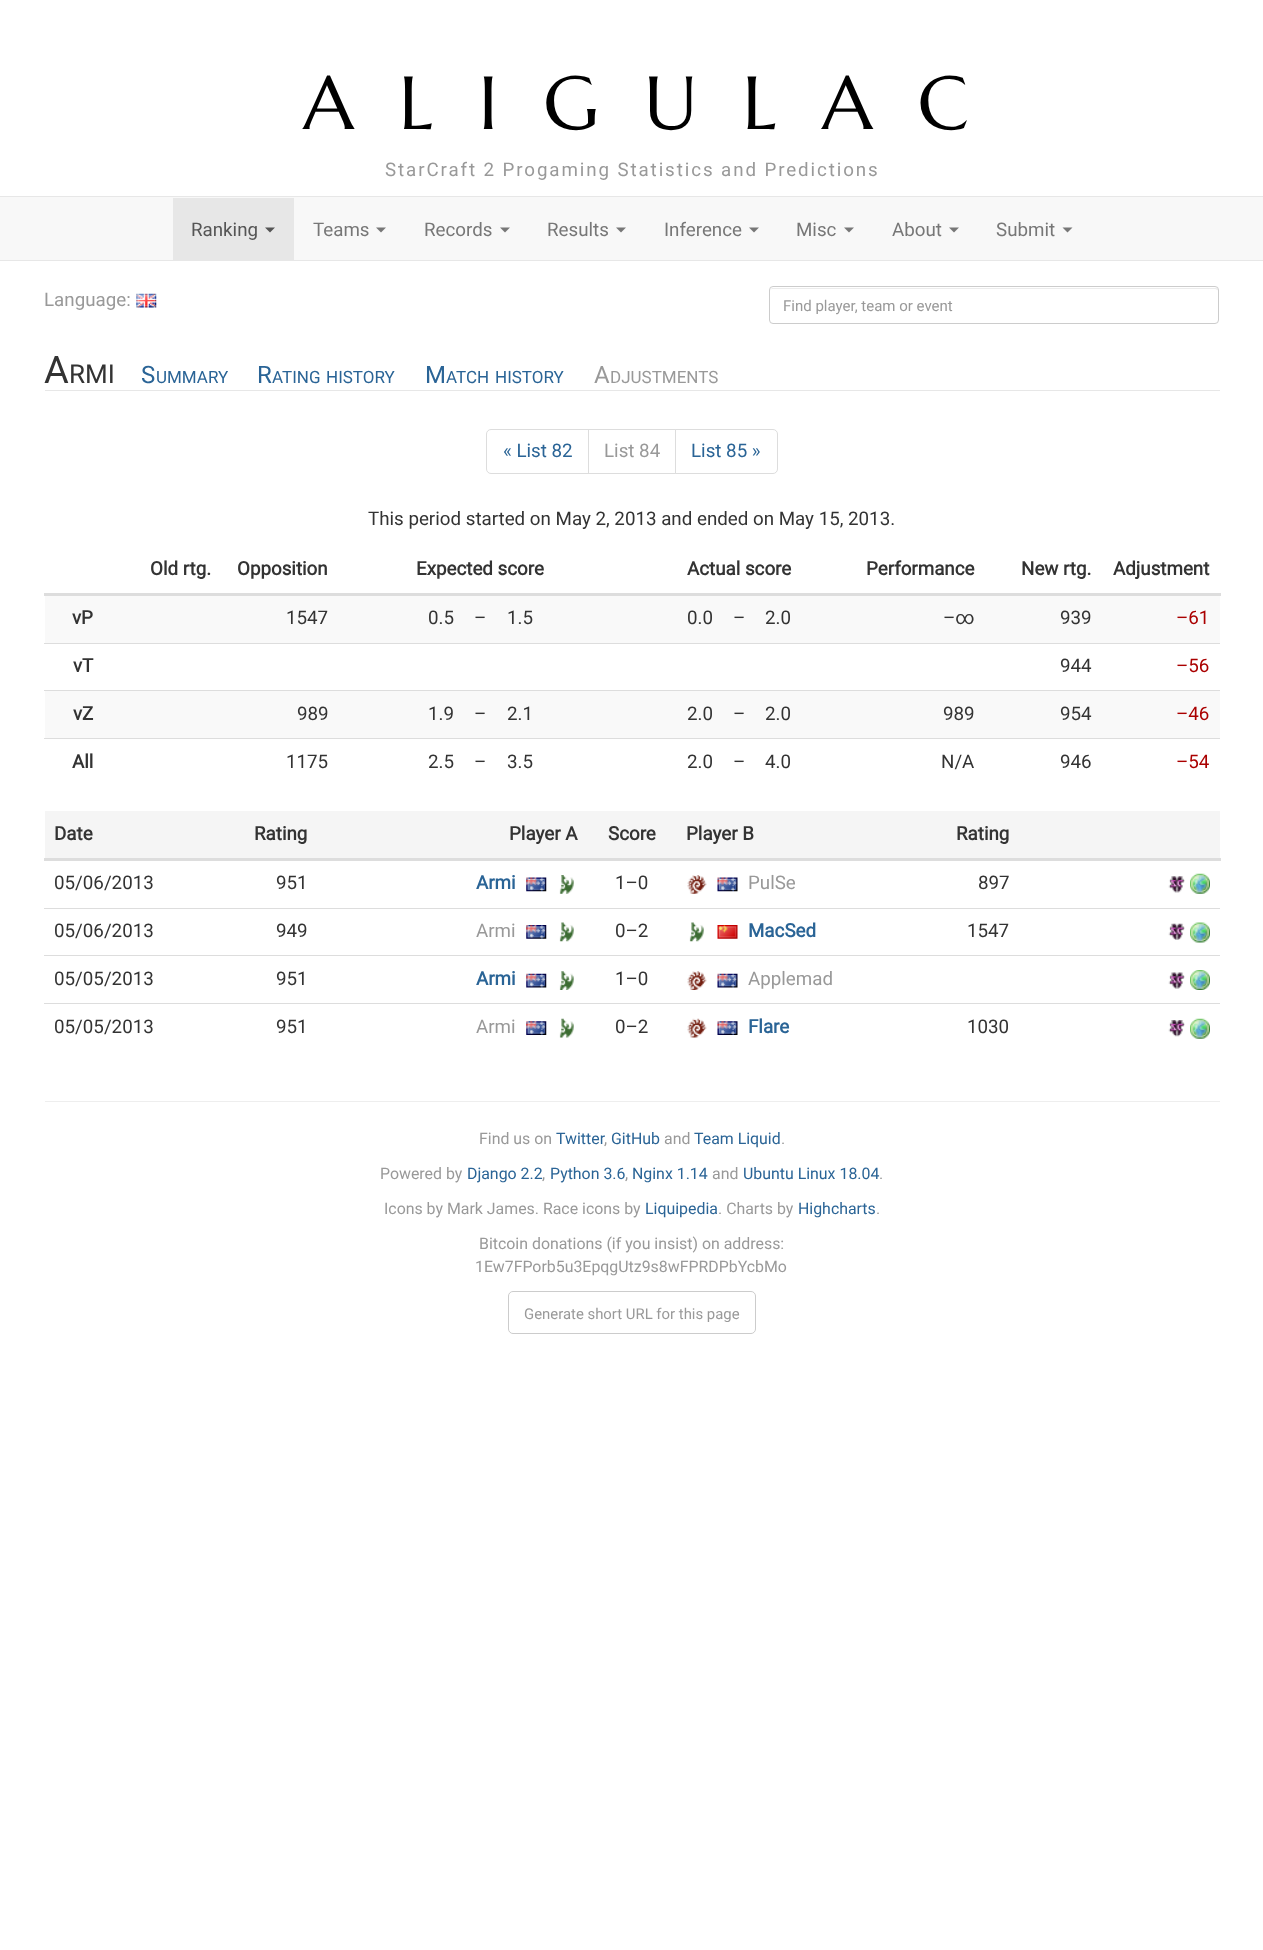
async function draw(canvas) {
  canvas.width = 1263;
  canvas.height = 1950;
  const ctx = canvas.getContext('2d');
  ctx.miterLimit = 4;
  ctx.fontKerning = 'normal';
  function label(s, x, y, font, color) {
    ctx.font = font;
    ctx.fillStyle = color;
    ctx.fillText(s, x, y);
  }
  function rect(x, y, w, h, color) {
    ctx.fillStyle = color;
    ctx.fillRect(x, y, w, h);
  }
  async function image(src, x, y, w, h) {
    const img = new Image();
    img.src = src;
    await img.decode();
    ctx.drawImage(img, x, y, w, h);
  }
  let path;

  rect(0, 0, 1263, 1950, '#fff');
  ctx.letterSpacing = '45px';
  label('ALIGULAC', 303, 129, '75px Marcellus SC', '#000');
  ctx.letterSpacing = '1.9px';
  label('StarCraft 2 Progaming Statistics and Predictions', 385, 176, '18.75px Roboto', '#999');
  rect(0, 197, 1263, 63, '#f8f8f8');
  rect(0, 196, 1263, 1, '#e7e7e7');
  rect(0, 260, 1263, 1, '#e7e7e7');
  rect(173, 198, 121, 62, '#e7e7e7');
  ctx.letterSpacing = '0px';
  label('Ranking', 191, 236, '18.75px Roboto', '#555');
  path = new Path2D('M265 227.5H275L270 232.5Z');
  ctx.fill(path);
  label('Teams', 313, 236, '18.75px Roboto', '#777');
  path = new Path2D('M376 227.5H386L381 232.5Z');
  ctx.fill(path);
  label('Records', 424, 236, '18.75px Roboto', '#777');
  path = new Path2D('M500 227.5H510L505 232.5Z');
  ctx.fill(path);
  label('Results', 547, 236, '18.75px Roboto', '#777');
  path = new Path2D('M616 227.5H626L621 232.5Z');
  ctx.fill(path);
  label('Inference', 664, 236, '18.75px Roboto', '#777');
  path = new Path2D('M749 227.5H759L754 232.5Z');
  ctx.fill(path);
  label('Misc', 796, 236, '18.75px Roboto', '#777');
  path = new Path2D('M844 227.5H854L849 232.5Z');
  ctx.fill(path);
  label('About', 892, 236, '18.75px Roboto', '#777');
  path = new Path2D('M949 227.5H959L954 232.5Z');
  ctx.fill(path);
  label('Submit', 996, 236, '18.75px Roboto', '#777');
  path = new Path2D('M1062.5 227.5H1072.5L1067.5 232.5Z');
  ctx.fill(path);
  label('Language:', 44, 306, '18.75px Roboto', '#999');
  await image('assets/img1.png', 136, 293, 21, 15);
  ctx.fillStyle = '#ececec';
  path = new Path2D('M772 289H1215C1216 289 1218 290 1218 291C1218 289 1217 288 1216 288H772L771 289L770 291C770 290 771 289 772 289Z');
  ctx.fill(path);
  ctx.beginPath();
  ctx.roundRect(769.5, 286.5, 449, 37, 3.5);
  ctx.strokeStyle = '#ccc';
  ctx.stroke();
  label('Find player, team or event', 783, 311, '15px Roboto', '#999');
  rect(45, 390, 1175, 1, '#e7e7e7');
  label('A', 44, 383, '38px Roboto', '#333');
  label('RMI', 69, 383, '26px Roboto', '#333');
  label('S', 141, 383, '24px Roboto', '#2a6496');
  label('UMMARY', 156, 383, '17px Roboto', '#2a6496');
  label('R', 257, 383, '24px Roboto', '#2a6496');
  label('ATING', 272, 383, '17px Roboto', '#2a6496');
  label('HISTORY', 326, 383, '17px Roboto', '#2a6496');
  label('M', 425, 383, '24px Roboto', '#2a6496');
  label('ATCH', 446, 383, '17px Roboto', '#2a6496');
  label('HISTORY', 495, 383, '17px Roboto', '#2a6496');
  label('A', 594, 383, '24px Roboto', '#999');
  label('DJUSTMENTS', 610, 383, '17px Roboto', '#999');
  ctx.beginPath();
  ctx.roundRect(486.5, 429.5, 102, 44, [4.5, 0, 0, 4.5]);
  ctx.strokeStyle = '#ddd';
  ctx.stroke();
  label('« List 82', 503, 457, '18.75px Roboto', '#2a6496');
  ctx.strokeRect(588.5, 429.5, 87, 44);
  label('List 84', 604, 457, '18.75px Roboto', '#999');
  ctx.fillStyle = '#fff';
  ctx.beginPath();
  ctx.roundRect(675.5, 429.5, 102, 44, [0, 4.5, 4.5, 0]);
  ctx.fill();
  ctx.stroke();
  label('List 85 »', 691, 457, '18.75px Roboto', '#2a6496');
  label('This period started on May 2, 2013 and ended on May 15, 2013.', 368, 525, '18.75px Roboto', '#333');
  label('Old rtg.', 150, 575, 'bold 18.75px Roboto', '#333');
  label('Opposition', 237, 575, 'bold 18.75px Roboto', '#333');
  label('Expected score', 416, 575, 'bold 18.75px Roboto', '#333');
  label('Actual score', 687, 575, 'bold 18.75px Roboto', '#333');
  label('Performance', 866, 575, 'bold 18.75px Roboto', '#333');
  label('New rtg.', 1021, 575, 'bold 18.75px Roboto', '#333');
  rect(44, 593, 1177, 3, '#ddd');
  label('Adjustment', 1113, 575, 'bold 18.75px Roboto', '#333');
  rect(45, 596, 1175, 47, '#f9f9f9');
  label('vP', 72, 624, 'bold 18.75px Roboto', '#333');
  label('1547', 286, 624, '18.75px Roboto', '#333');
  label('0.5', 428, 624, '18.75px Roboto', '#333');
  label('–', 474, 624, '18.75px Roboto', '#333');
  label('1.5', 507, 624, '18.75px Roboto', '#333');
  label('0.0', 687, 624, '18.75px Roboto', '#333');
  label('–', 733, 624, '18.75px Roboto', '#333');
  label('2.0', 765, 624, '18.75px Roboto', '#333');
  label('–∞', 943, 624, '18.75px Roboto', '#333');
  label('939', 1060, 624, '18.75px Roboto', '#333');
  label('–61', 1176, 624, '18.75px Roboto', '#a00');
  label('vT', 73, 672, 'bold 18.75px Roboto', '#333');
  label('944', 1060, 672, '18.75px Roboto', '#333');
  rect(44, 643, 1176, 1, '#ddd');
  label('–56', 1176, 672, '18.75px Roboto', '#a00');
  rect(45, 691, 1175, 47, '#f9f9f9');
  label('vZ', 73, 720, 'bold 18.75px Roboto', '#333');
  label('989', 297, 720, '18.75px Roboto', '#333');
  label('1.9', 428, 720, '18.75px Roboto', '#333');
  label('–', 474, 720, '18.75px Roboto', '#333');
  label('2.1', 507, 720, '18.75px Roboto', '#333');
  label('2.0', 687, 720, '18.75px Roboto', '#333');
  label('–', 733, 720, '18.75px Roboto', '#333');
  label('2.0', 765, 720, '18.75px Roboto', '#333');
  label('989', 943, 720, '18.75px Roboto', '#333');
  label('954', 1060, 720, '18.75px Roboto', '#333');
  rect(44, 690, 1176, 1, '#ddd');
  label('–46', 1176, 720, '18.75px Roboto', '#a00');
  label('All', 72, 768, 'bold 18.75px Roboto', '#333');
  label('1175', 286, 768, '18.75px Roboto', '#333');
  label('2.5', 428, 768, '18.75px Roboto', '#333');
  label('–', 474, 768, '18.75px Roboto', '#333');
  label('3.5', 507, 768, '18.75px Roboto', '#333');
  label('2.0', 687, 768, '18.75px Roboto', '#333');
  label('–', 733, 768, '18.75px Roboto', '#333');
  label('4.0', 765, 768, '18.75px Roboto', '#333');
  label('N/A', 941, 768, '18.75px Roboto', '#333');
  label('946', 1060, 768, '18.75px Roboto', '#333');
  rect(44, 738, 1176, 1, '#ddd');
  label('–54', 1176, 768, '18.75px Roboto', '#a00');
  rect(45, 811, 1175, 47, '#f5f5f5');
  label('Date', 54, 840, 'bold 18.75px Roboto', '#333');
  label('Rating', 254, 840, 'bold 18.75px Roboto', '#333');
  label('Player A', 509, 840, 'bold 18.75px Roboto', '#333');
  label('Score', 608, 840, 'bold 18.75px Roboto', '#333');
  label('Player B', 686, 840, 'bold 18.75px Roboto', '#333');
  label('Rating', 956, 840, 'bold 18.75px Roboto', '#333');
  rect(44, 858, 1177, 3, '#ddd');
  label('05/06/2013', 54, 889, '18.75px Roboto', '#333');
  label('951', 276, 889, '18.75px Roboto', '#333');
  label('Armi', 476, 889, 'bold 18.75px Roboto', '#2a6496');
  await image('assets/img2.png', 526, 877, 21, 15);
  await image('assets/img3.png', 559, 875, 15, 19);
  label('1–0', 615, 889, '18.75px Roboto', '#333');
  await image('assets/img4.png', 687, 875, 20, 19);
  await image('assets/img5.png', 717, 877, 21, 15);
  label('PulSe', 748, 889, '18.75px Roboto', '#999');
  label('897', 978, 889, '18.75px Roboto', '#333');
  await image('assets/img6.png', 1168, 876, 17, 17);
  await image('assets/img7.png', 1190, 873, 20, 21);
  rect(44, 908, 1176, 1, '#ddd');
  await image('assets/img8.png', 1168, 923, 17, 17);
  await image('assets/img9.png', 1190, 922, 20, 21);
  label('05/06/2013', 54, 937, '18.75px Roboto', '#333');
  label('949', 276, 937, '18.75px Roboto', '#333');
  label('Armi', 476, 937, '18.75px Roboto', '#999');
  await image('assets/img10.png', 526, 925, 21, 14);
  await image('assets/img11.png', 559, 922, 15, 20);
  label('0–2', 615, 937, '18.75px Roboto', '#333');
  await image('assets/img11.png', 689, 922, 15, 20);
  await image('assets/img12.png', 717, 925, 21, 14);
  label('MacSed', 748, 937, 'bold 18.75px Roboto', '#2a6496');
  label('1547', 967, 937, '18.75px Roboto', '#333');
  rect(44, 955, 1176, 1, '#ddd');
  await image('assets/img13.png', 1168, 972, 17, 17);
  await image('assets/img14.png', 1190, 970, 20, 20);
  label('05/05/2013', 54, 985, '18.75px Roboto', '#333');
  label('951', 276, 985, '18.75px Roboto', '#333');
  label('Armi', 476, 985, 'bold 18.75px Roboto', '#2a6496');
  await image('assets/img15.png', 526, 973, 21, 15);
  await image('assets/img16.png', 559, 971, 15, 19);
  label('1–0', 615, 985, '18.75px Roboto', '#333');
  await image('assets/img17.png', 687, 971, 20, 19);
  await image('assets/img18.png', 717, 973, 21, 15);
  label('Applemad', 748, 985, '18.75px Roboto', '#999');
  rect(44, 1003, 1176, 1, '#ddd');
  await image('assets/img19.png', 1168, 1020, 17, 17);
  await image('assets/img7.png', 1190, 1018, 20, 21);
  label('05/05/2013', 54, 1033, '18.75px Roboto', '#333');
  label('951', 276, 1033, '18.75px Roboto', '#333');
  label('Armi', 476, 1033, '18.75px Roboto', '#999');
  await image('assets/img20.png', 526, 1021, 21, 14);
  await image('assets/img21.png', 559, 1018, 15, 20);
  label('0–2', 615, 1033, '18.75px Roboto', '#333');
  await image('assets/img22.png', 687, 1018, 20, 20);
  await image('assets/img23.png', 717, 1021, 21, 14);
  label('Flare', 748, 1033, 'bold 18.75px Roboto', '#2a6496');
  label('1030', 967, 1033, '18.75px Roboto', '#333');
  rect(45, 1101, 1175, 1, '#eee');
  label('Find us on', 479, 1144, '15.9px Roboto', '#999');
  label('Twitter', 556, 1144, '15.9px Roboto', '#2a6496');
  label(',', 604, 1144, '15.9px Roboto', '#999');
  label('GitHub', 611, 1144, '15.9px Roboto', '#2a6496');
  label('and', 664, 1144, '15.9px Roboto', '#999');
  label('Team Liquid', 694, 1144, '15.9px Roboto', '#2a6496');
  label('.', 781, 1144, '15.9px Roboto', '#999');
  label('Powered by', 380, 1179, '15.9px Roboto', '#999');
  label('Django 2.2', 467, 1179, '15.9px Roboto', '#2a6496');
  label(',', 542, 1179, '15.9px Roboto', '#999');
  label('Python 3.6', 550, 1179, '15.9px Roboto', '#2a6496');
  label(',', 625, 1179, '15.9px Roboto', '#999');
  label('Nginx 1.14', 632, 1179, '15.9px Roboto', '#2a6496');
  label('and', 712, 1179, '15.9px Roboto', '#999');
  label('Ubuntu Linux 18.04', 743, 1179, '15.9px Roboto', '#2a6496');
  label('.', 879, 1179, '15.9px Roboto', '#999');
  label('Icons by Mark James. Race icons by', 384, 1214, '15.9px Roboto', '#999');
  label('Liquipedia', 645, 1214, '15.9px Roboto', '#2a6496');
  label('. Charts by', 718, 1214, '15.9px Roboto', '#999');
  label('Highcharts', 798, 1214, '15.9px Roboto', '#2a6496');
  label('.', 876, 1214, '15.9px Roboto', '#999');
  label('Bitcoin donations (if you insist) on address:', 479, 1249, '15.9px Roboto', '#999');
  label('1Ew7FPorb5u3EpqgUtz9s8wFPRDPbYcbMo', 475, 1272, '15.9px Roboto', '#999');
  ctx.beginPath();
  ctx.roundRect(508.5, 1291.5, 247, 42, 4.5);
  ctx.strokeStyle = '#ccc';
  ctx.stroke();
  label('Generate short URL for this page', 524, 1319, '14.9px Roboto', '#999');
}

draw(document.querySelector('canvas'));
